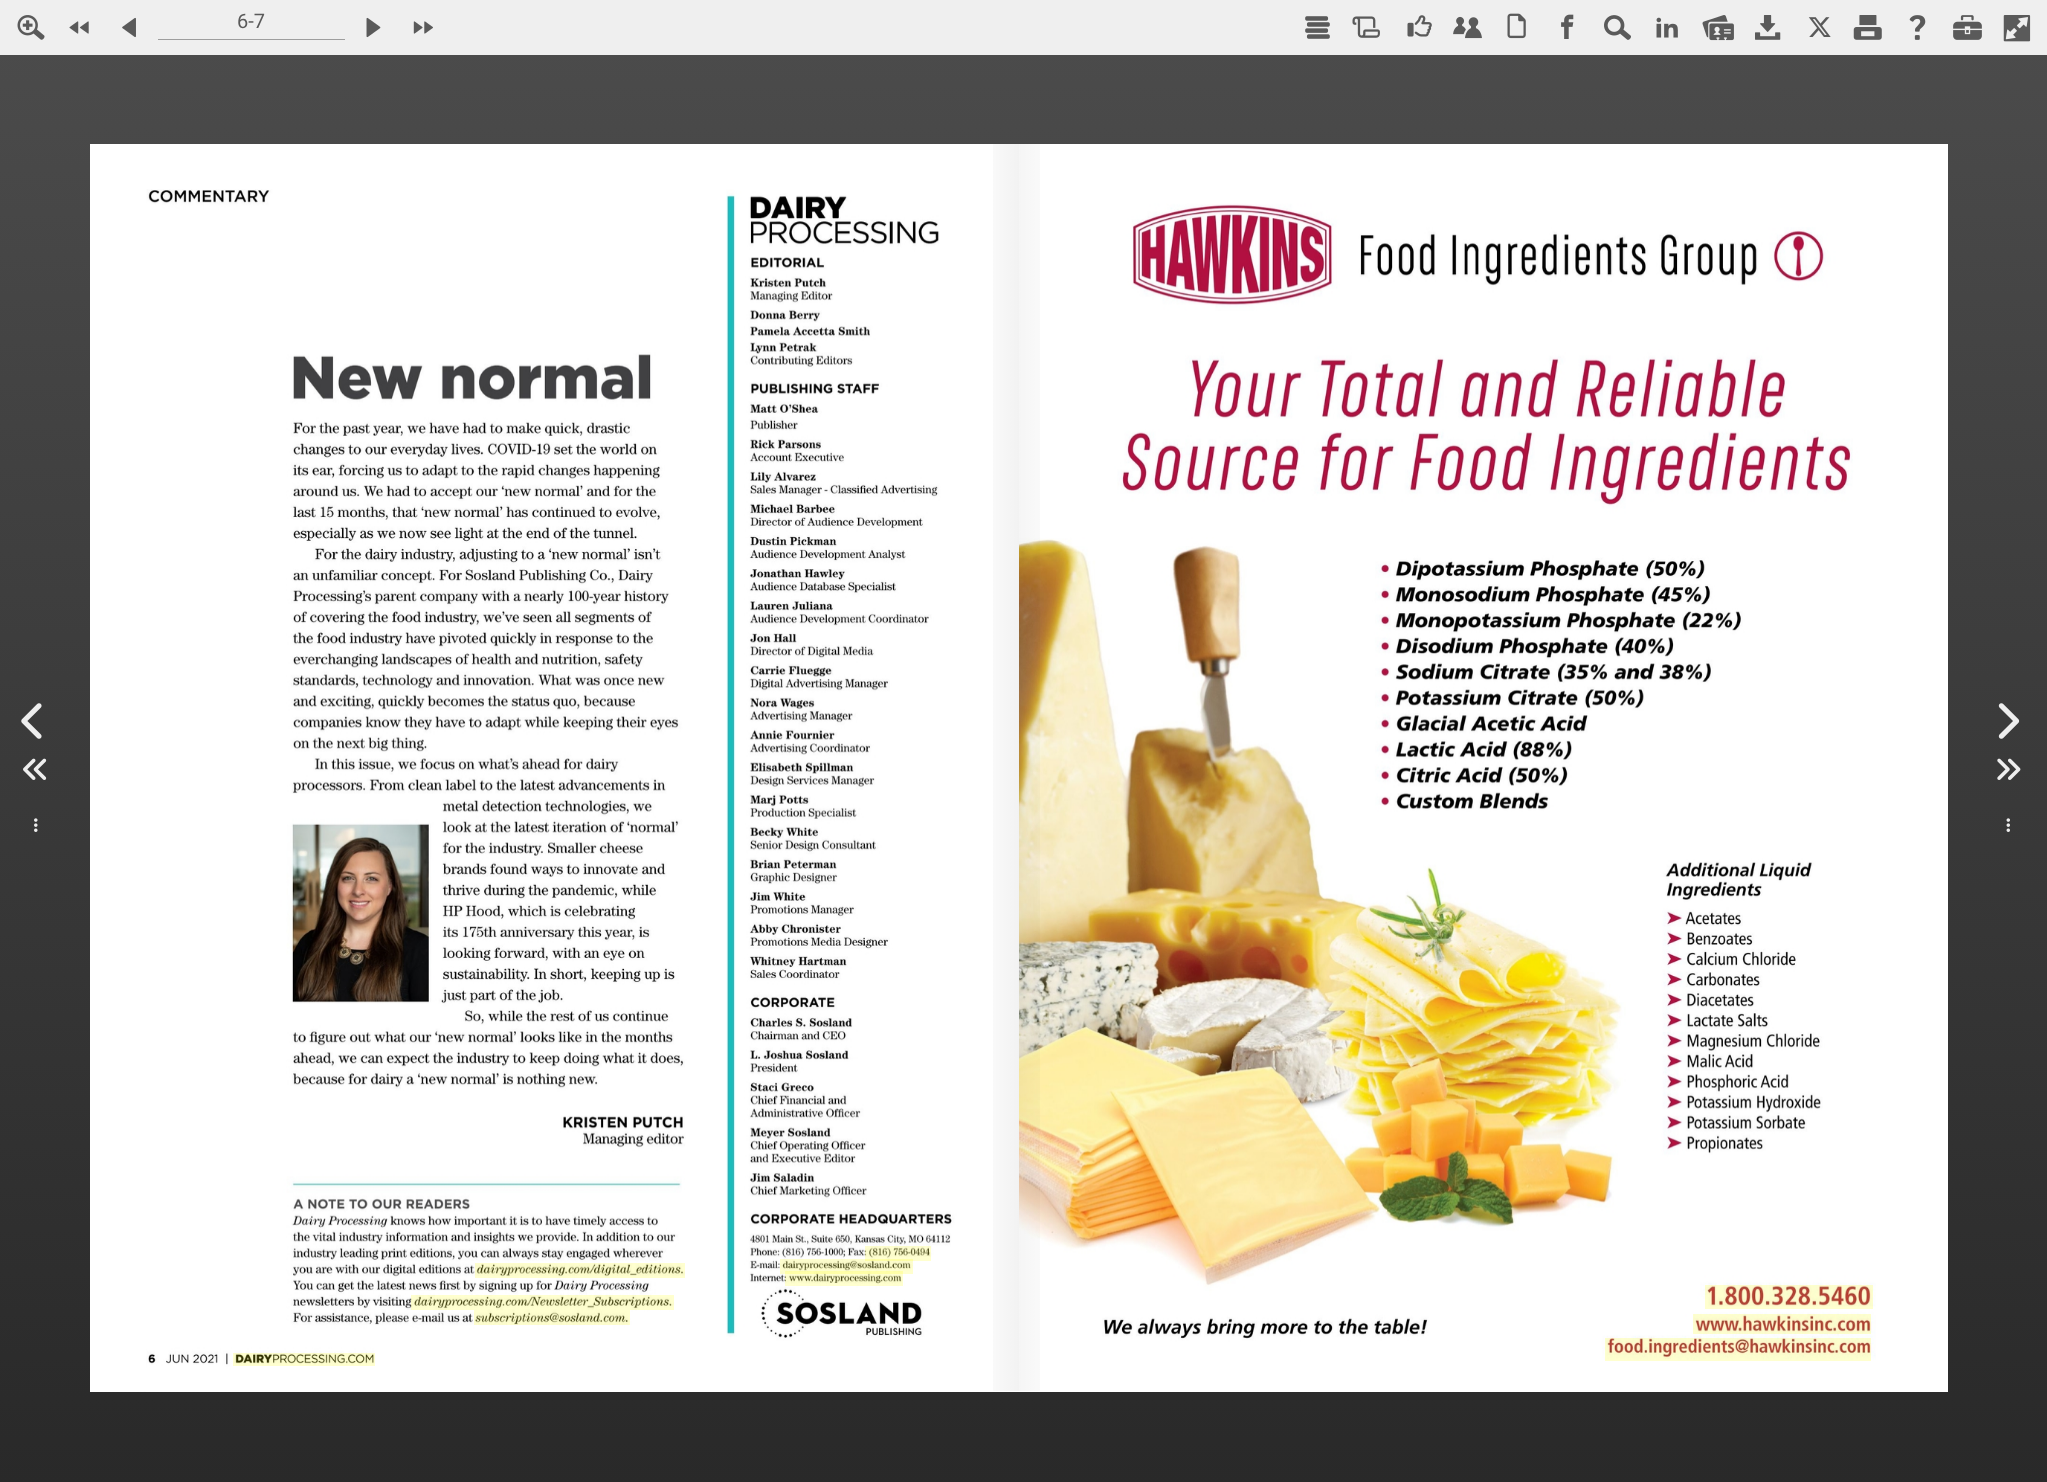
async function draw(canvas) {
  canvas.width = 2047;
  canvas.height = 1482;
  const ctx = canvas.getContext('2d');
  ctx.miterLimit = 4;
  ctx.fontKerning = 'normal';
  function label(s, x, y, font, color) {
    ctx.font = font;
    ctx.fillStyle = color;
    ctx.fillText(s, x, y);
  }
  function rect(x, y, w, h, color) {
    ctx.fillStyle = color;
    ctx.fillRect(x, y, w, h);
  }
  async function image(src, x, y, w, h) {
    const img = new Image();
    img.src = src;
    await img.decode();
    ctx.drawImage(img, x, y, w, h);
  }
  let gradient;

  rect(0, 0, 2047, 1482, '#fff');
  gradient = ctx.createLinearGradient(1024, 0, 1024, 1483);
  gradient.addColorStop(0, '#4c4c4c');
  gradient.addColorStop(1, '#292929');
  ctx.fillStyle = gradient;
  ctx.fillRect(0, 55, 2047, 1427);
  rect(0, 0, 2047, 55, '#efefef');
  await image('assets/img1.png', 17, 15, 28, 25);
  await image('assets/img2.png', 69, 21, 20, 13);
  await image('assets/img3.png', 122, 17, 14, 21);
  rect(158, 39, 187, 1, '#9e9e9e');
  label('6-7', 237, 28, '20px Roboto', '#5a5a5a');
  await image('assets/img4.png', 366, 17, 15, 21);
  await image('assets/img5.png', 413, 21, 20, 13);
  await image('assets/img6.png', 1305, 16, 25, 23);
  await image('assets/img7.png', 1352, 16, 28, 22);
  await image('assets/img8.png', 1407, 15, 25, 22);
  await image('assets/img9.png', 1453, 16, 29, 23);
  await image('assets/img10.png', 1507, 13, 19, 26);
  await image('assets/img11.png', 1561, 14, 13, 25);
  await image('assets/img12.png', 1604, 15, 27, 25);
  await image('assets/img13.png', 1656, 17, 22, 21);
  await image('assets/img14.png', 1702, 15, 32, 26);
  await image('assets/img15.png', 1755, 15, 26, 25);
  await image('assets/img16.png', 1808, 17, 23, 20);
  await image('assets/img17.png', 1853, 15, 29, 25);
  await image('assets/img18.png', 1909, 15, 17, 25);
  await image('assets/img19.png', 1953, 15, 29, 25);
  await image('assets/img20.png', 2003, 15, 28, 27);
  await image('assets/img21.png', 21, 703, 21, 36);
  await image('assets/img22.png', 23, 758, 24, 22);
  await image('assets/img23.png', 34, 818, 4, 14);
  rect(90, 144, 929, 1247, '#fff');
  await image('assets/img24.png', 146, 189, 1, 1203);
  await image('assets/img25.png', 147, 189, 872, 1203);
  gradient = ctx.createLinearGradient(90, 769, 1019, 769);
  gradient.addColorStop(0.95, '#00000000');
  gradient.addColorStop(1, '#0000000d');
  ctx.fillStyle = gradient;
  ctx.fillRect(993, 144, 26, 1247);
  rect(865, 1246, 66, 15, '#ffff0030');
  rect(475, 1263, 210, 15, '#ffff0030');
  rect(780, 1259, 133, 15, '#ffff0030');
  rect(785, 1271, 118, 15, '#ffff0030');
  rect(411, 1295, 263, 15, '#ffff0030');
  rect(474, 1310, 156, 15, '#ffff0030');
  rect(233, 1353, 142, 13, '#ffff0030');
  rect(1019, 144, 929, 58, '#fff');
  await image('assets/img26.png', 1019, 202, 929, 1190);
  gradient = ctx.createLinearGradient(1948, 769, 1019, 769);
  gradient.addColorStop(0.95, '#00000000');
  gradient.addColorStop(1, '#0000000a');
  ctx.fillStyle = gradient;
  ctx.fillRect(1019, 144, 21, 1247);
  rect(1705, 1285, 168, 24, '#ffff0030');
  rect(1693, 1314, 178, 20, '#ffff0030');
  rect(1605, 1338, 266, 23, '#ffff0030');
  await image('assets/img27.png', 90, 1391, 56, 1);
  await image('assets/img28.png', 1998, 703, 22, 36);
  await image('assets/img29.png', 1997, 758, 24, 22);
  await image('assets/img30.png', 2006, 818, 4, 14);
}

draw(document.querySelector('canvas'));
